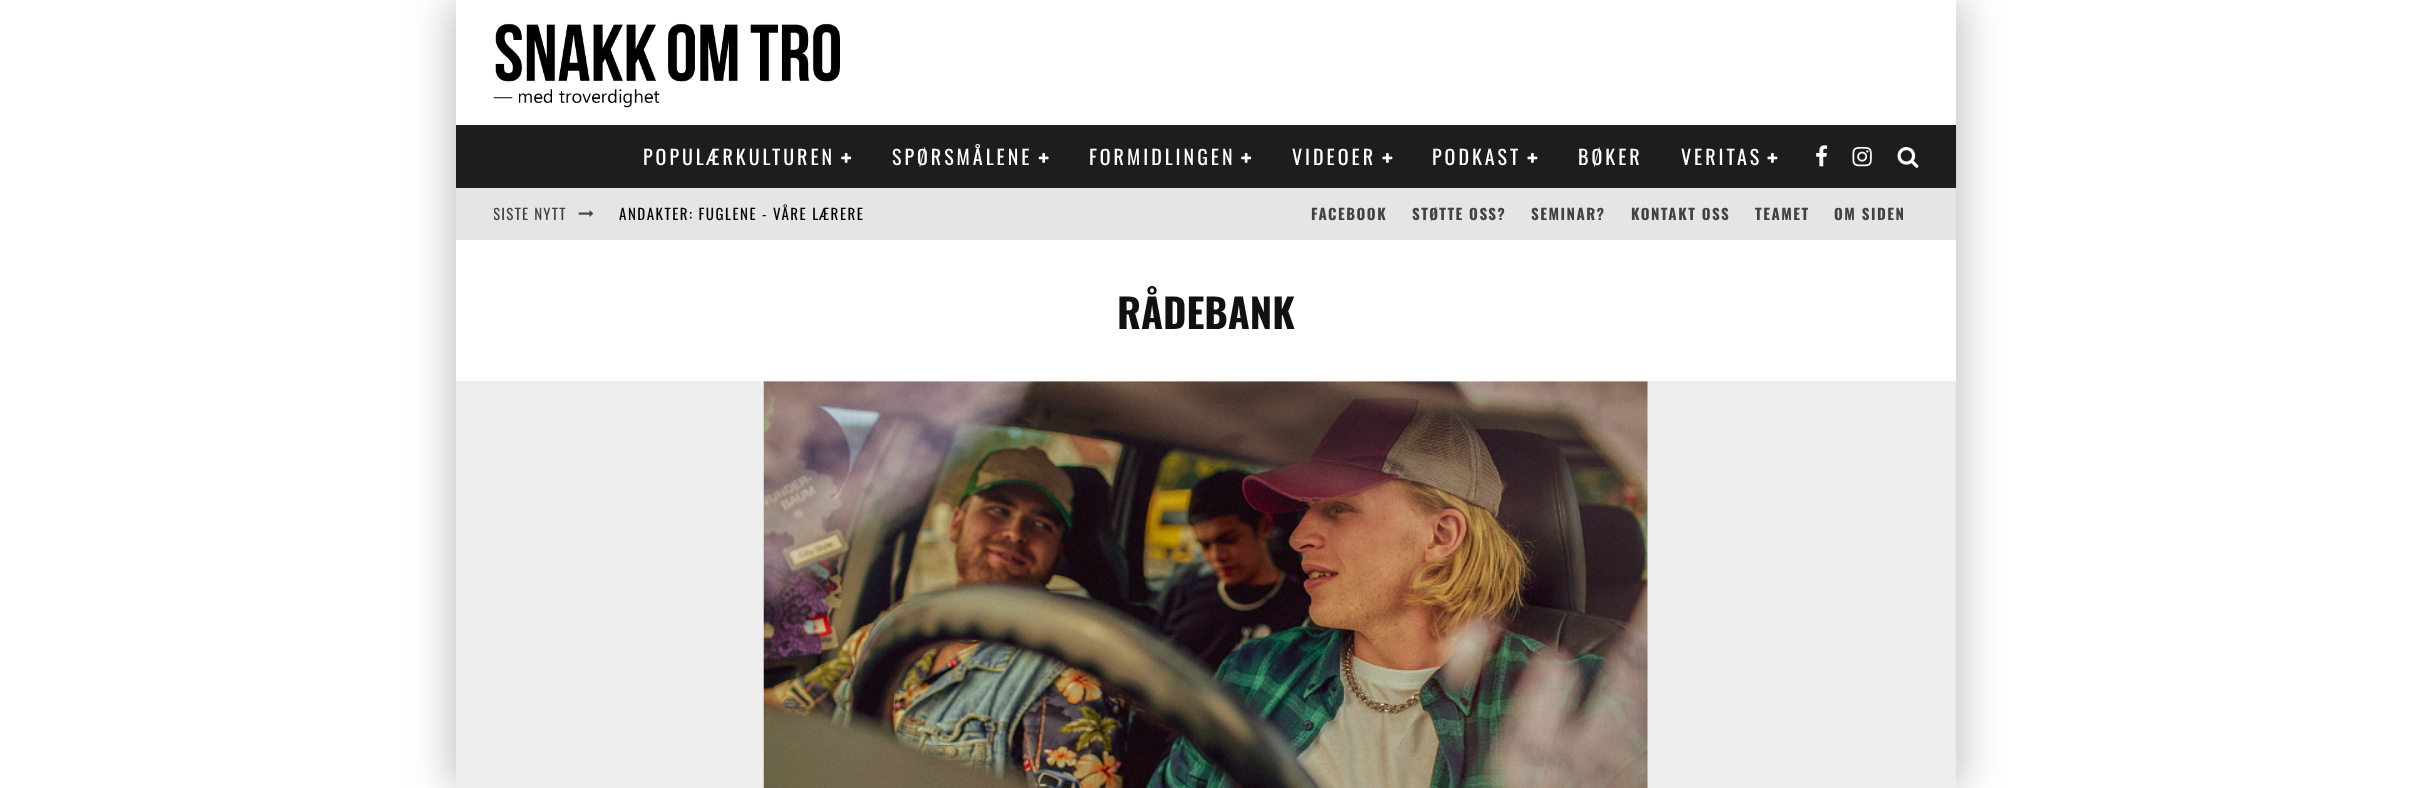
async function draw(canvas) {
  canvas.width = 2411;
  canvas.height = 788;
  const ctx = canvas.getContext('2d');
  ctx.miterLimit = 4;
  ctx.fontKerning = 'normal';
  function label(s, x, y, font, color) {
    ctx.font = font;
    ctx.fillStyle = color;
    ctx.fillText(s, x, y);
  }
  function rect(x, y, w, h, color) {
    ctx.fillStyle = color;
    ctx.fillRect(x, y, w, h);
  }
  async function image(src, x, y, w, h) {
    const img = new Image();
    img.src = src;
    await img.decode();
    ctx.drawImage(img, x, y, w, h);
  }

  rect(0, 0, 2411, 788, '#fff');
  ctx.fillStyle = '#00000026';
  ctx.filter = 'blur(19px)';
  ctx.beginPath();
  ctx.rect(444, 0, 1500, 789);
  ctx.fill();
  ctx.filter = 'none';
  ctx.filter = 'blur(19px)';
  ctx.beginPath();
  ctx.rect(469, 0, 1500, 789);
  ctx.fill();
  ctx.filter = 'none';
  rect(456, 0, 1500, 125, '#fff');
  await image('assets/img1.png', 493, 23, 347, 85);
  rect(456, 125, 1500, 63, '#1d1d1d');
  ctx.letterSpacing = '3px';
  label('POPULÆRKULTUREN', 643, 165, '20px Oswald', '#fff');
  await image('assets/img2.png', 841, 153, 11, 10);
  label('SPØRSMÅLENE', 892, 165, '20px Oswald', '#fff');
  await image('assets/img3.png', 1038, 153, 11, 10);
  label('FORMIDLINGEN', 1089, 165, '20px Oswald', '#fff');
  await image('assets/img2.png', 1241, 153, 11, 10);
  label('VIDEOER', 1292, 165, '20px Oswald', '#fff');
  await image('assets/img4.png', 1382, 153, 11, 10);
  label('PODKAST', 1432, 165, '20px Oswald', '#fff');
  await image('assets/img4.png', 1527, 153, 11, 10);
  label('BØKER', 1578, 165, '20px Oswald', '#fff');
  label('VERITAS', 1681, 165, '20px Oswald', '#fff');
  await image('assets/img4.png', 1767, 153, 11, 10);
  await image('assets/img5.png', 1816, 145, 12, 22);
  await image('assets/img6.png', 1852, 146, 20, 21);
  await image('assets/img7.png', 1897, 147, 22, 21);
  rect(456, 188, 1500, 52, '#e5e5e5');
  ctx.save();
  ctx.beginPath();
  ctx.rect(494, 188, 376, 52);
  ctx.clip();
  ctx.letterSpacing = '1.25px';
  label('SISTE NYTT', 493, 220, '15px Oswald', '#424242');
  ctx.restore();
  await image('assets/img8.png', 578, 210, 16, 7);
  ctx.letterSpacing = '1.5px';
  label('ANDAKTER: FUGLENE - VÅRE LÆRERE', 619, 220, '15px Oswald', '#000');
  label('FACEBOOK', 1311, 220, 'bold 15px Oswald', '#424242');
  label('STØTTE OSS?', 1412, 220, 'bold 15px Oswald', '#424242');
  label('SEMINAR?', 1531, 220, 'bold 15px Oswald', '#424242');
  label('KONTAKT OSS', 1631, 220, 'bold 15px Oswald', '#424242');
  label('TEAMET', 1755, 220, 'bold 15px Oswald', '#424242');
  label('OM SIDEN', 1834, 220, 'bold 15px Oswald', '#424242');
  rect(456, 240, 1500, 141, '#fff');
  ctx.letterSpacing = '0px';
  label('RÅDEBANK', 1117, 329, 'bold 40px Oswald', '#111');
  rect(456, 381, 1500, 407, '#eee');
  await image('assets/img9.png', 763, 381, 885, 407);
}

draw(document.querySelector('canvas'));
